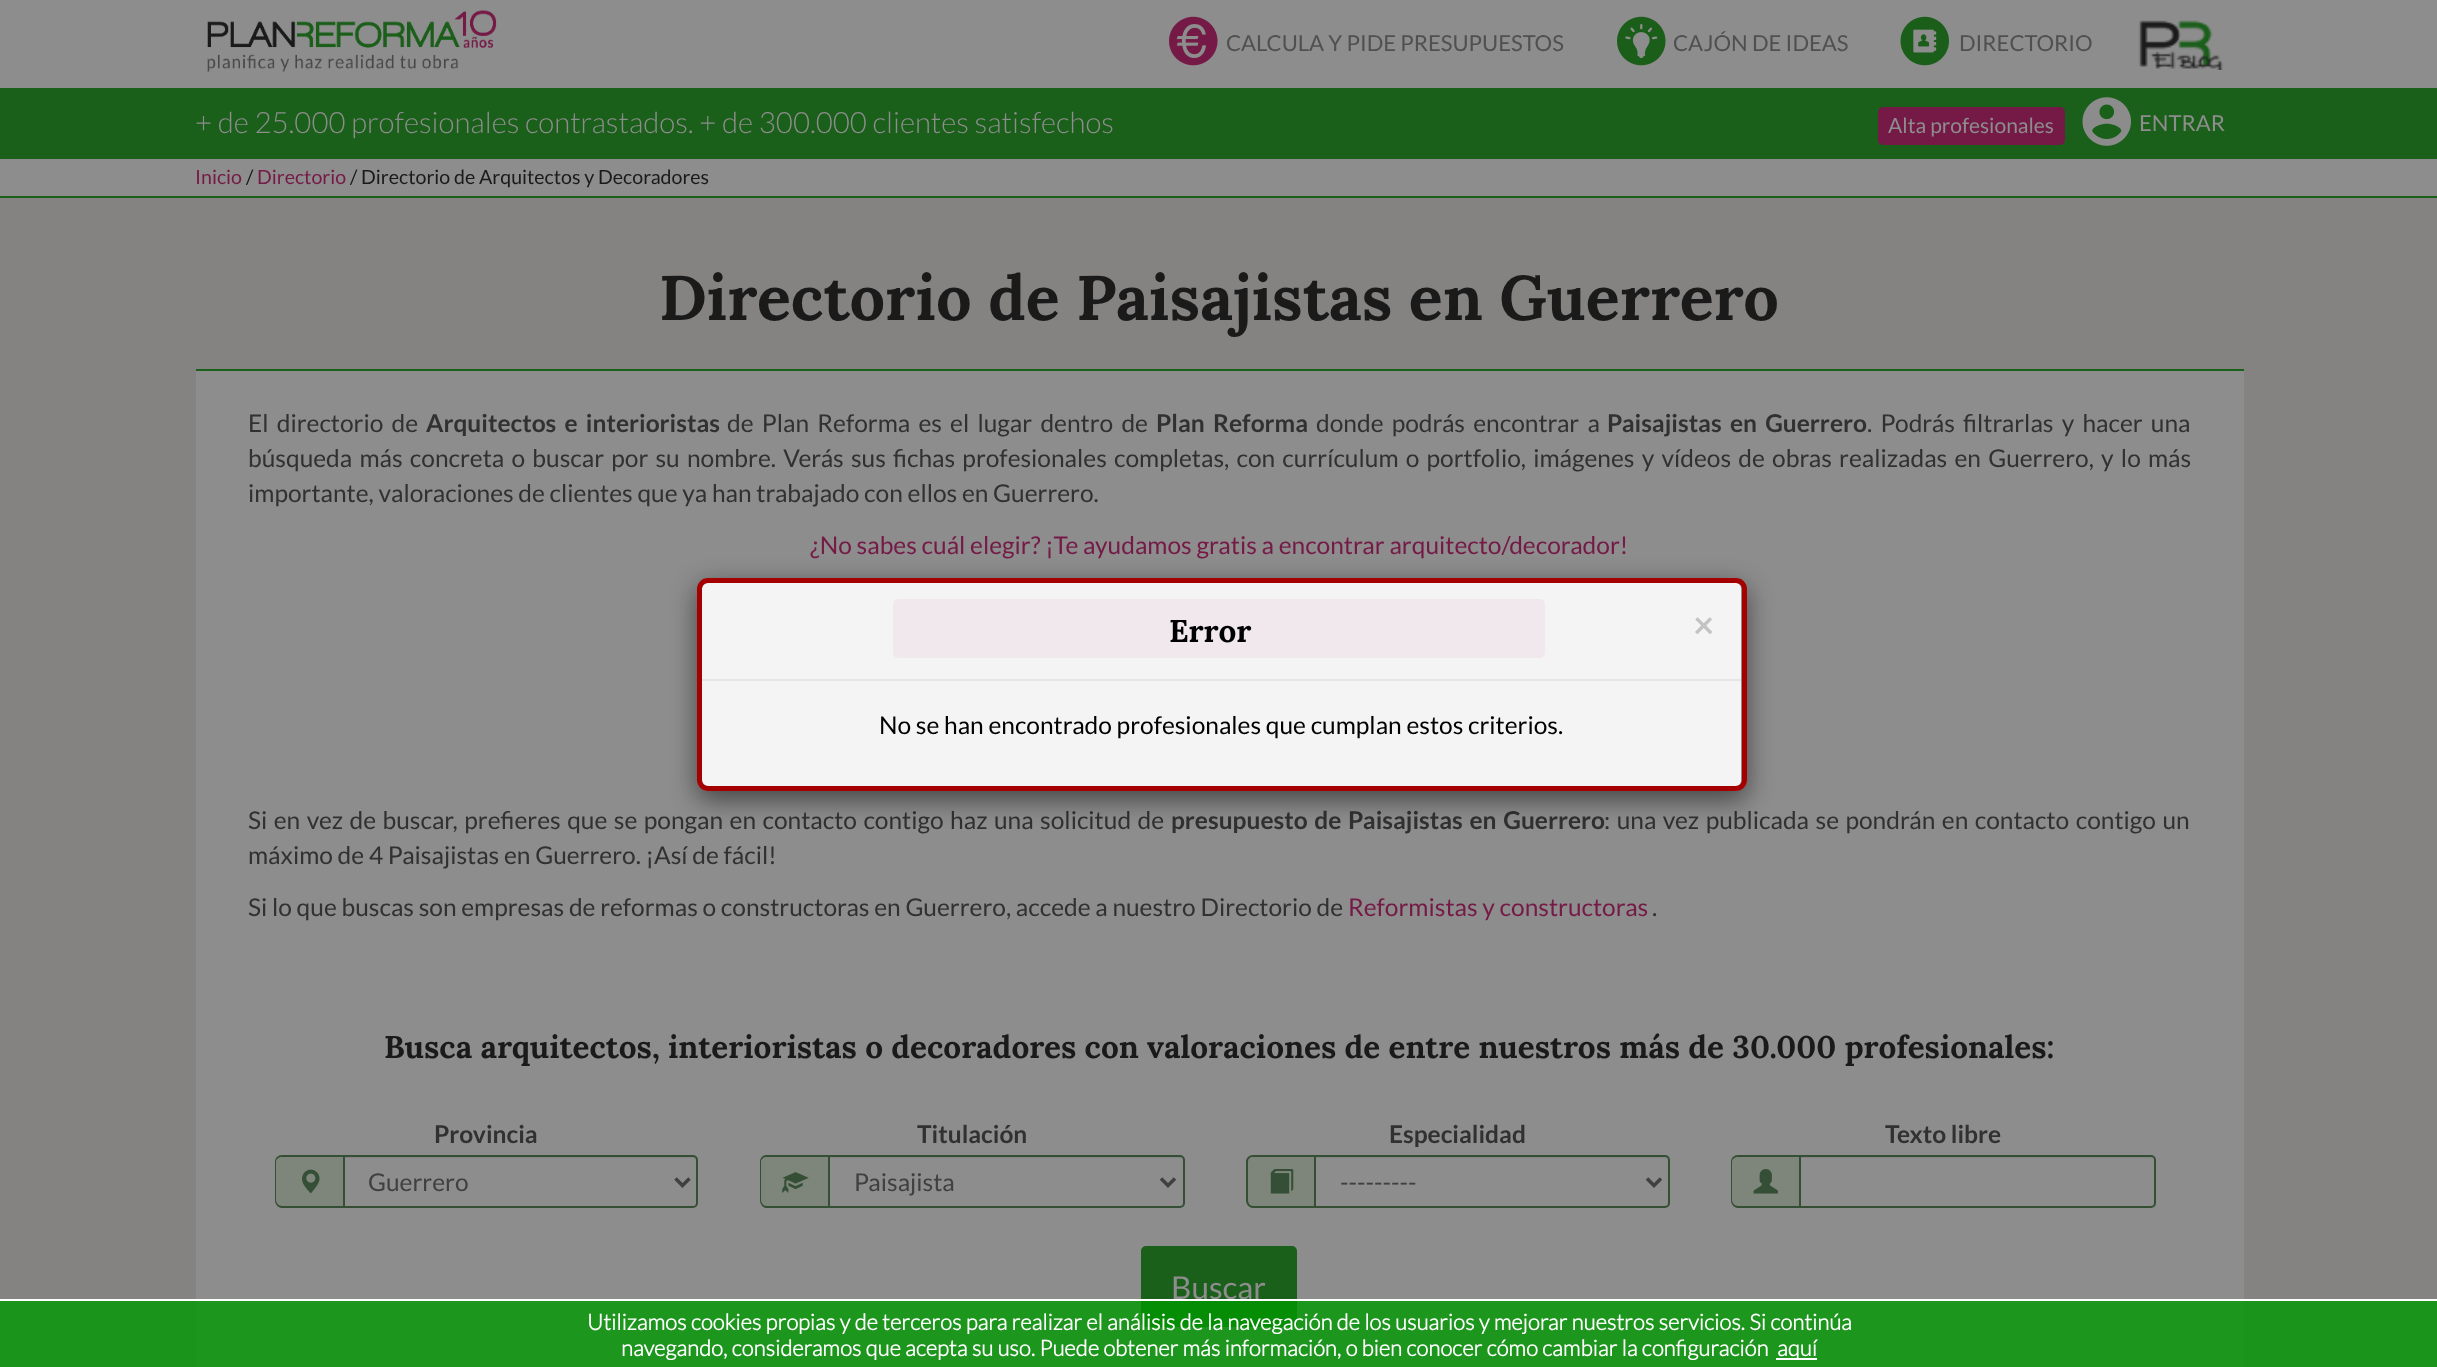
async function draw(canvas) {
  canvas.width = 2437;
  canvas.height = 1367;
  const ctx = canvas.getContext('2d');
  ctx.miterLimit = 4;
  ctx.fontKerning = 'normal';
  function label(s, x, y, font, color) {
    ctx.font = font;
    ctx.fillStyle = color;
    ctx.fillText(s, x, y);
  }
  function rect(x, y, w, h, color) {
    ctx.fillStyle = color;
    ctx.fillRect(x, y, w, h);
  }
  function roundedRect(x, y, w, h, r, color) {
    ctx.fillStyle = color;
    ctx.beginPath();
    ctx.roundRect(x, y, w, h, r);
    ctx.fill();
  }
  async function image(src, x, y, w, h) {
    const img = new Image();
    img.src = src;
    await img.decode();
    ctx.drawImage(img, x, y, w, h);
  }
  let path;

  rect(0, 0, 2437, 1367, '#8d8d8d');
  await image('assets/img1.png', 207, 10, 290, 62);
  await image('assets/img2.png', 1169, 16, 49, 50);
  label('CALCULA Y PIDE PRESUPUESTOS', 1226, 51, '22.05px Lato', '#505050');
  await image('assets/img3.png', 1617, 16, 49, 50);
  label('CAJÓN DE IDEAS', 1673, 51, '22.05px Lato', '#505050');
  await image('assets/img4.png', 1900, 16, 49, 50);
  label('DIRECTORIO', 1959, 51, '22.05px Lato', '#505050');
  await image('assets/img5.png', 2138, 20, 85, 50);
  rect(0, 88, 2437, 71, '#1a5f1a');
  label('+ de 25.000 profesionales contrastados. + de 300.000 clientes satisfechos', 195, 133, '300 29.4px Lato', '#8d8d8d');
  ctx.fillStyle = '#751a47';
  ctx.beginPath();
  ctx.roundRect(1879, 108, 185, 36, 4);
  ctx.fill();
  ctx.strokeStyle = '#751a47';
  ctx.lineWidth = 2;
  ctx.stroke();
  label('Alta profesionales', 1888, 133, '21px Lato', '#8d8d8d');
  await image('assets/img6.png', 2082, 97, 49, 49);
  label('ENTRAR', 2139, 131, '22.05px Lato', '#8d8d8d');
  rect(0, 196, 2437, 2, '#1a5f1a');
  label('Inicio', 195, 184, '19.6px Lato', '#751a47');
  label('/', 246, 184, '19.6px Lato', '#1a1a1a');
  label('Directorio', 257, 184, '19.6px Lato', '#751a47');
  label('/ Directorio de Arquitectos y Decoradores', 350, 184, '19.6px Lato', '#1a1a1a');
  rect(0, 198, 2437, 1169, '#848381');
  rect(196, 369, 2048, 2, '#1a5f1a');
  label('Directorio de Paisajistas en Guerrero', 659, 320, 'bold 63px Lora', '#1a1a1a');
  rect(196, 371, 2048, 996, '#8d8d8d');
  ctx.wordSpacing = '3.5px';
  label('El directorio de', 248, 432, '24.5px Lato', '#313131');
  label('Arquitectos e interioristas', 426, 432, 'bold 24.5px Lato', '#313131');
  label('de Plan Reforma es el lugar dentro de', 727, 432, '24.5px Lato', '#313131');
  label('Plan Reforma', 1156, 432, 'bold 24.5px Lato', '#313131');
  label('donde podrás encontrar a', 1316, 432, '24.5px Lato', '#313131');
  label('Paisajistas en Guerrero', 1607, 432, 'bold 24.5px Lato', '#313131');
  label('. Podrás filtrarlas y hacer una', 1867, 432, '24.5px Lato', '#313131');
  ctx.wordSpacing = '2.5px';
  label('búsqueda más concreta o buscar por su nombre. Verás sus fichas profesionales completas, con currículum o portfolio, imágenes y vídeos de obras realizadas en Guerrero, y lo más', 248, 467, '24.5px Lato', '#313131');
  ctx.wordSpacing = '0px';
  label('importante, valoraciones de clientes que ya han trabajado con ellos en Guerrero.', 248, 502, '24.5px Lato', '#313131');
  label('¿No sabes cuál elegir? ¡Te ayudamos gratis a encontrar arquitecto/decorador!', 810, 554, '24.5px Lato', '#751a47');
  ctx.beginPath();
  ctx.roundRect(894, 600, 650, 57, 4);
  ctx.fill();
  ctx.stroke();
  ctx.wordSpacing = '1.75px';
  label('Si en vez de buscar, prefieres que se pongan en contacto contigo haz una solicitud de', 248, 829, '24.5px Lato', '#313131');
  ctx.wordSpacing = '2px';
  label('presupuesto de Paisajistas en Guerrero', 1171, 829, 'bold 24.5px Lato', '#313131');
  ctx.wordSpacing = '1.75px';
  label(': una vez publicada se pondrán en contacto contigo un', 1604, 829, '24.5px Lato', '#313131');
  ctx.wordSpacing = '0px';
  label('máximo de 4 Paisajistas en Guerrero. ¡Así de fácil!', 248, 864, '24.5px Lato', '#313131');
  label('Si lo que buscas son empresas de reformas o constructoras en Guerrero, accede a nuestro Directorio de', 248, 916, '24.5px Lato', '#313131');
  label('Reformistas y constructoras', 1348, 916, '24.5px Lato', '#751a47');
  label('.', 1652, 916, '24.5px Lato', '#313131');
  label('Busca arquitectos, interioristas o decoradores con valoraciones de entre nuestros más de 30.000 profesionales:', 384, 1058, 'bold 31.5px Lora', '#1a1a1a');
  label('Provincia', 434, 1143, 'bold 24.5px Lato', '#313131');
  ctx.fillStyle = '#7e867b';
  ctx.beginPath();
  ctx.roundRect(275, 1155, 68, 53, [7, 0, 0, 7]);
  ctx.fill();
  ctx.fillStyle = '#354f35';
  path = new Path2D('M282 1155H343V1208H282C278 1208 275 1204 275 1200V1162C275 1158 278 1155 282 1155ZM282 1157H343V1206H282C279 1206 276 1203 276 1200V1162C276 1159 279 1157 282 1157Z');
  ctx.fill(path, 'evenodd');
  await image('assets/img7.png', 302, 1169, 18, 25);
  ctx.fillStyle = '#848484';
  path = new Path2D('M345 1158H693C695 1158 696 1160 696 1162V1205C697 1204 697 1203 697 1202V1161C697 1159 695 1157 693 1157H345Z');
  ctx.fill(path);
  ctx.beginPath();
  ctx.roundRect(344, 1156, 353, 51, [0, 4, 4, 0]);
  ctx.strokeStyle = '#354f35';
  ctx.stroke();
  path = new Path2D('M675.5 1178.5L682.5 1185.5L689.5 1178.5');
  ctx.strokeStyle = '#404040';
  ctx.lineWidth = 3.5;
  ctx.stroke(path);
  label('Guerrero', 368, 1191, '24.5px Lato', '#404040');
  label('Titulación', 917, 1143, 'bold 24.5px Lato', '#313131');
  ctx.fillStyle = '#7e867b';
  ctx.beginPath();
  ctx.roundRect(760, 1155, 68, 53, [7, 0, 0, 7]);
  ctx.fill();
  ctx.fillStyle = '#354f35';
  path = new Path2D('M766 1155H828V1208H766C763 1208 760 1204 760 1200V1162C760 1158 763 1155 766 1155ZM766 1157H828V1206H766C764 1206 761 1203 761 1200V1162C761 1159 764 1157 766 1157Z');
  ctx.fill(path, 'evenodd');
  await image('assets/img8.png', 782, 1172, 27, 21);
  ctx.fillStyle = '#848484';
  path = new Path2D('M830 1158H1180C1181 1158 1183 1160 1183 1162C1183 1159 1182 1157 1179 1157H830Z');
  ctx.fill(path);
  ctx.beginPath();
  ctx.roundRect(829, 1156, 355, 51, [0, 4, 4, 0]);
  ctx.strokeStyle = '#354f35';
  ctx.lineWidth = 2;
  ctx.stroke();
  path = new Path2D('M1161 1178.5L1168 1185.5L1175 1178.5');
  ctx.strokeStyle = '#404040';
  ctx.lineWidth = 3.5;
  ctx.stroke(path);
  label('Paisajista', 854, 1191, '24.5px Lato', '#404040');
  label('Especialidad', 1389, 1143, 'bold 24.5px Lato', '#313131');
  ctx.fillStyle = '#7e867b';
  ctx.beginPath();
  ctx.roundRect(1246, 1155, 68, 53, [7, 0, 0, 7]);
  ctx.fill();
  ctx.fillStyle = '#354f35';
  path = new Path2D('M1253 1155H1314V1208H1253C1249 1208 1246 1204 1246 1200V1162C1246 1158 1249 1155 1253 1155ZM1253 1157H1314V1206H1253C1250 1206 1248 1203 1248 1200V1162C1248 1159 1250 1157 1253 1157Z');
  ctx.fill(path, 'evenodd');
  await image('assets/img9.png', 1270, 1169, 24, 25);
  ctx.fillStyle = '#848484';
  path = new Path2D('M1316 1158H1664C1666 1158 1668 1160 1668 1162C1668 1159 1667 1157 1664 1157H1316Z');
  ctx.fill(path);
  ctx.beginPath();
  ctx.roundRect(1315, 1156, 354, 51, [0, 4, 4, 0]);
  ctx.strokeStyle = '#354f35';
  ctx.lineWidth = 2;
  ctx.stroke();
  path = new Path2D('M1647 1178.5L1654 1185.5L1661 1178.5');
  ctx.strokeStyle = '#404040';
  ctx.lineWidth = 3.5;
  ctx.stroke(path);
  label('---------', 1340, 1191, '24.5px Lato', '#404040');
  label('Texto libre', 1885, 1143, 'bold 24.5px Lato', '#313131');
  ctx.fillStyle = '#7e867b';
  ctx.beginPath();
  ctx.roundRect(1731, 1155, 68, 53, [7, 0, 0, 7]);
  ctx.fill();
  ctx.fillStyle = '#354f35';
  path = new Path2D('M1738 1155H1799V1208H1738C1734 1208 1731 1204 1731 1200V1162C1731 1158 1734 1155 1738 1155ZM1738 1157H1799V1206H1738C1735 1206 1732 1203 1732 1200V1162C1732 1159 1735 1157 1738 1157Z');
  ctx.fill(path, 'evenodd');
  await image('assets/img10.png', 1753, 1169, 25, 25);
  ctx.fillStyle = '#848484';
  path = new Path2D('M1801 1158H2151C2153 1158 2154 1160 2154 1162C2154 1159 2153 1157 2150 1157H1801Z');
  ctx.fill(path);
  ctx.beginPath();
  ctx.roundRect(1800, 1156, 355, 51, [0, 4, 4, 0]);
  ctx.strokeStyle = '#354f35';
  ctx.lineWidth = 2;
  ctx.stroke();
  ctx.fillStyle = '#1a5f1a';
  ctx.beginPath();
  ctx.roundRect(1142, 1247, 154, 79, 4);
  ctx.fill();
  ctx.strokeStyle = '#1a5f1a';
  ctx.stroke();
  label('Buscar', 1171, 1299, '31.5px Lato', '#8d8d8d');
  rect(249, 1362, 1942, 2, '#858585');
  ctx.save();
  path = new Path2D('M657 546H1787V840H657ZM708 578H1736C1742 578 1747 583 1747 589V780C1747 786 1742 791 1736 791H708C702 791 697 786 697 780V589C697 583 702 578 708 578Z');
  ctx.clip(path, 'evenodd');
  ctx.fillStyle = '#00000080';
  ctx.filter = 'blur(13px)';
  ctx.beginPath();
  ctx.roundRect(697, 586, 1050, 214, 11);
  ctx.fill();
  ctx.filter = 'none';
  ctx.restore();
  roundedRect(702, 583, 1039, 203, 5, '#ffffffe6');
  ctx.beginPath();
  ctx.roundRect(699.5, 580.5, 1045, 208, 8.5);
  ctx.strokeStyle = '#a50000';
  ctx.lineWidth = 5;
  ctx.stroke();
  rect(702, 679, 1039, 2, '#e5e5e5');
  label('Error', 1169, 642, 'bold 31.5px Lora', '#000');
  label('×', 1693, 638, 'bold 37px Lato', '#c3c3c3');
  label('No se han encontrado profesionales que cumplan estos criterios.', 879, 734, '24.5px Lato', '#000');
  rect(0, 1301, 2437, 66, '#009900cc');
  rect(0, 1299, 2437, 2, '#fff');
  label('Utilizamos cookies propias y de terceros para realizar el análisis de la navegación de los usuarios y mejorar nuestros servicios. Si continúa', 587, 1330, 'bold 22.05px "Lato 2"', '#fff');
  label('navegando, consideramos que acepta su uso. Puede obtener más información, o bien conocer cómo cambiar la configuración', 621, 1356, 'bold 22.05px "Lato 2"', '#fff');
  rect(1776, 1358, 41, 2, '#fff');
  label('aquí', 1777, 1356, 'bold 22.05px "Lato 2"', '#fff');
}

draw(document.querySelector('canvas'));
